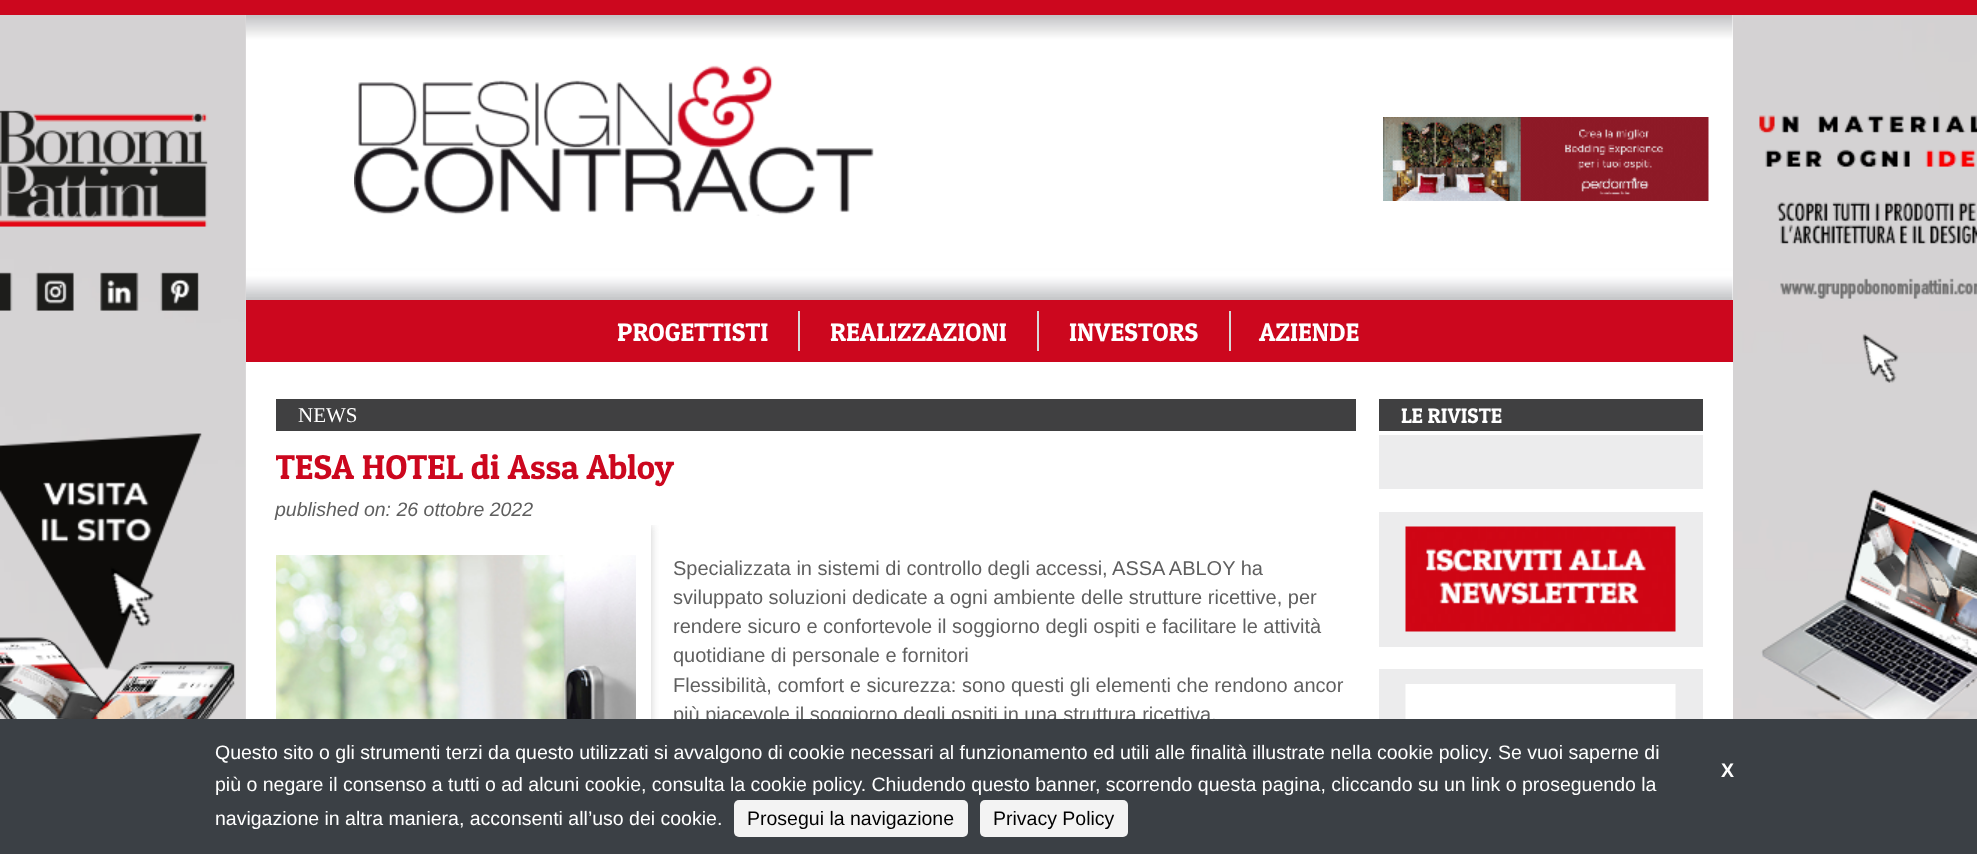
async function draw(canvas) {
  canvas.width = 1977;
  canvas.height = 854;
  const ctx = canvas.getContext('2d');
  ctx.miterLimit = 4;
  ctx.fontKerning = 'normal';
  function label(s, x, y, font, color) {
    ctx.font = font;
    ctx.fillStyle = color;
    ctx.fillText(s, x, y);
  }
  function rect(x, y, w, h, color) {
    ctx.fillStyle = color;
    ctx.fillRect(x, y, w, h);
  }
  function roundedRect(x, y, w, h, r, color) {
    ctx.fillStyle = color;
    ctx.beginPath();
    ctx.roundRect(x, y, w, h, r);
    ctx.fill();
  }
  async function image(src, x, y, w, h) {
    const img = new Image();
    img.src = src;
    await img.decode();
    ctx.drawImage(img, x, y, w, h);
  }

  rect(0, 0, 1977, 854, '#fff');
  await image('assets/img1.png', 0, 15, 1977, 704);
  rect(0, 0, 1977, 15, '#cc071e');
  rect(246, 15, 1487, 704, '#fff');
  await image('assets/img2.png', 246, 15, 1487, 285);
  await image('assets/img3.png', 354, 65, 520, 151);
  await image('assets/img4.png', 1383, 117, 326, 84);
  rect(246, 300, 1487, 62, '#cc071e');
  rect(798, 311, 2, 40, '#d8d8d8');
  label('PROGETTISTI', 617, 341, '25.5px Patua One', '#fff');
  rect(1037, 311, 2, 40, '#d8d8d8');
  label('REALIZZAZIONI', 830, 341, '25.5px Patua One', '#fff');
  rect(1229, 311, 2, 40, '#d8d8d8');
  label('INVESTORS', 1069, 341, '25.5px Patua One', '#fff');
  label('AZIENDE', 1259, 341, '25.5px Patua One', '#fff');
  rect(276, 399, 1080, 32, '#404041');
  label('NEWS', 298, 422, '21px Liberation Serif', '#fff');
  ctx.save();
  ctx.beginPath();
  ctx.rect(276, 446, 1080, 45);
  ctx.clip();
  label('TESA HOTEL di Assa Abloy', 275, 479, '34.5px Patua One', '#cc071e');
  ctx.restore();
  label('published on: 26 ottobre 2022', 275, 516, 'italic 19.5px Liberation Sans', '#5f5f5f');
  ctx.save();
  ctx.beginPath();
  ctx.rect(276, 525, 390, 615);
  ctx.clip();
  ctx.beginPath();
  ctx.rect(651, 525, 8, 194);
  ctx.clip();
  ctx.fillStyle = '#ccc';
  ctx.filter = 'blur(4px)';
  ctx.beginPath();
  ctx.rect(276, 525, 375, 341);
  ctx.fill();
  ctx.filter = 'none';
  ctx.restore();
  await image('assets/img5.png', 276, 555, 360, 164);
  label('Specializzata in sistemi di controllo degli accessi, ASSA ABLOY ha', 673, 575, '20px Liberation Sans', '#5f5f5f');
  label('sviluppato soluzioni dedicate a ogni ambiente delle strutture ricettive, per', 673, 604, '20px Liberation Sans', '#5f5f5f');
  label('rendere sicuro e confortevole il soggiorno degli ospiti e facilitare le attività', 673, 633, '20px Liberation Sans', '#5f5f5f');
  label('quotidiane di personale e fornitori', 673, 662, '20px Liberation Sans', '#5f5f5f');
  label('Flessibilità, comfort e sicurezza: sono questi gli elementi che rendono ancor', 673, 692, '20px Liberation Sans', '#5f5f5f');
  label('più piacevole il soggiorno degli ospiti in una struttura ricettiva.', 673, 721, '20px Liberation Sans', '#5f5f5f');
  rect(1379, 399, 324, 32, '#404041');
  label('LE RIVISTE', 1401, 423, '21px Patua One', '#fff');
  rect(1379, 435, 324, 54, '#ececed');
  rect(1379, 512, 324, 135, '#ececed');
  await image('assets/img6.png', 1405, 526, 271, 106);
  rect(1379, 669, 324, 50, '#ececed');
  await image('assets/img7.png', 1405, 684, 271, 35);
  rect(0, 719, 1977, 135, '#3b4045');
  label('Questo sito o gli strumenti terzi da questo utilizzati si avvalgono di cookie necessari al funzionamento ed utili alle finalità illustrate nella cookie policy. Se vuoi saperne di', 215, 759, '19.5px Liberation Sans', '#fff');
  label('X', 1721, 777, 'bold 19.5px Liberation Sans', '#fff');
  label('più o negare il consenso a tutti o ad alcuni cookie, consulta la cookie policy. Chiudendo questo banner, scorrendo questa pagina, cliccando su un link o proseguendo la', 215, 791, '19.5px Liberation Sans', '#fff');
  label('navigazione in altra maniera, acconsenti all’uso dei cookie.', 215, 825, '19.5px Liberation Sans', '#fff');
  roundedRect(734, 800, 234, 37, 5, '#f3f3f3');
  label('Prosegui la navigazione', 747, 825, '19.5px Liberation Sans', '#000');
  roundedRect(980, 800, 148, 37, 5, '#f3f3f3');
  label('Privacy Policy', 993, 825, '19.5px Liberation Sans', '#000');
}

draw(document.querySelector('canvas'));
